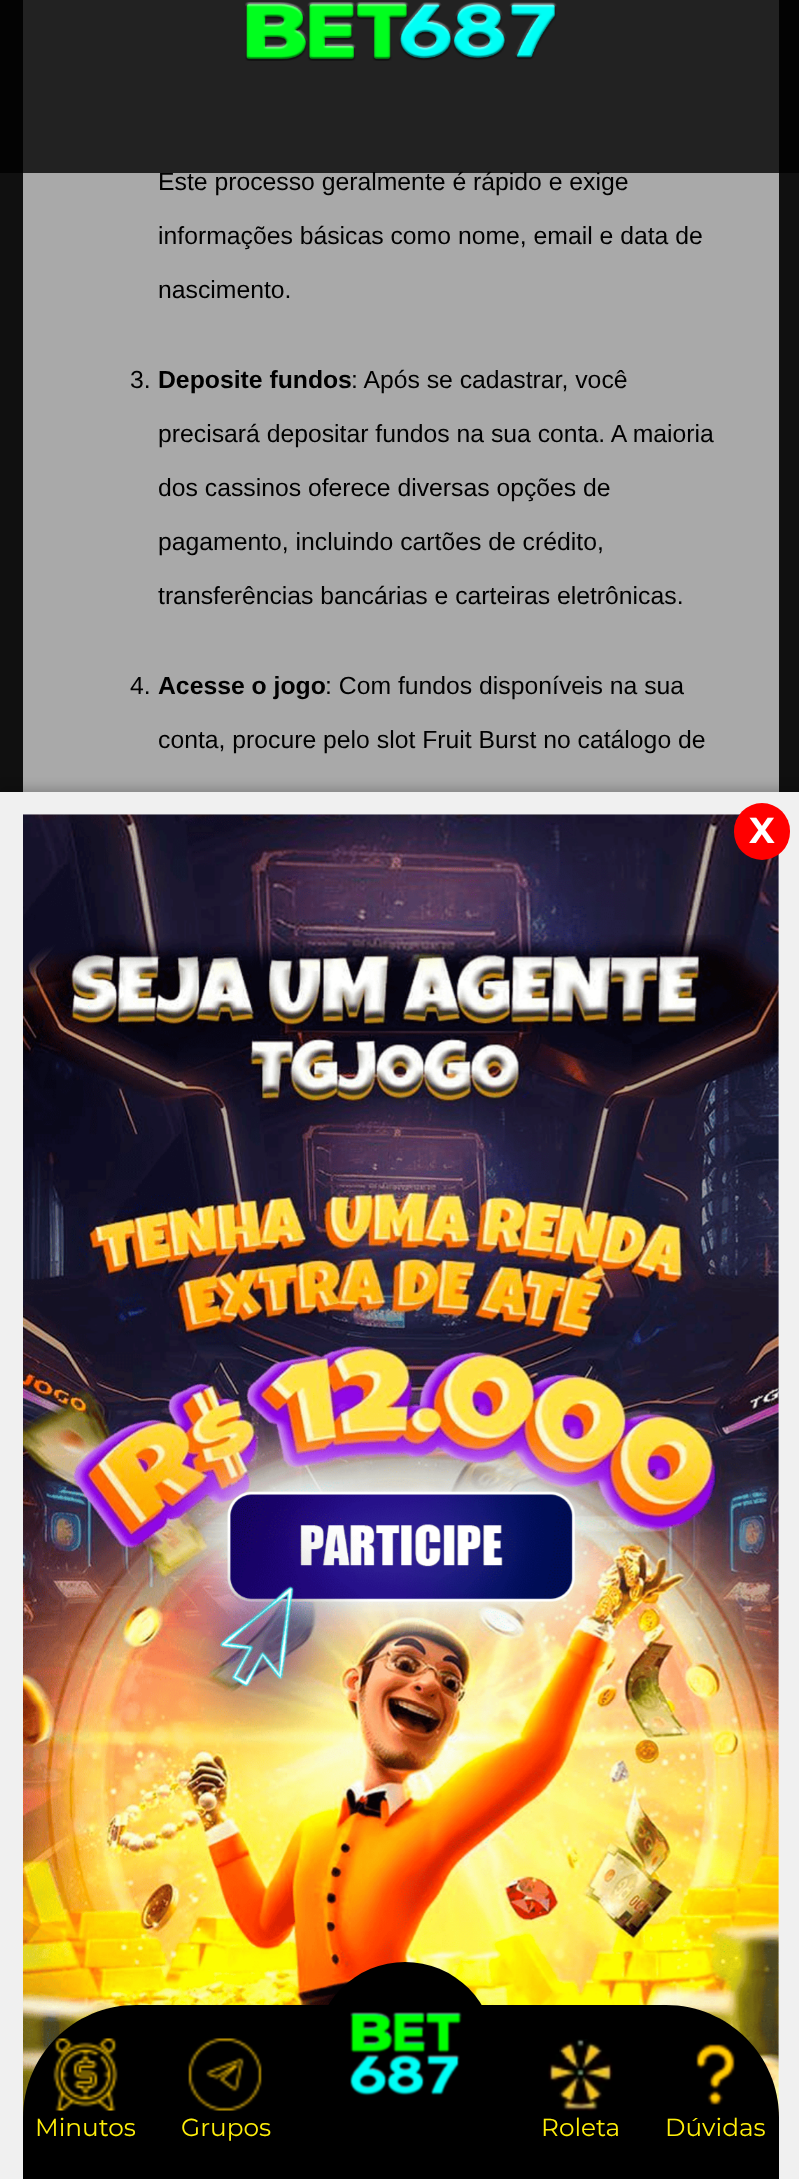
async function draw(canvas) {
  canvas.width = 799;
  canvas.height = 2179;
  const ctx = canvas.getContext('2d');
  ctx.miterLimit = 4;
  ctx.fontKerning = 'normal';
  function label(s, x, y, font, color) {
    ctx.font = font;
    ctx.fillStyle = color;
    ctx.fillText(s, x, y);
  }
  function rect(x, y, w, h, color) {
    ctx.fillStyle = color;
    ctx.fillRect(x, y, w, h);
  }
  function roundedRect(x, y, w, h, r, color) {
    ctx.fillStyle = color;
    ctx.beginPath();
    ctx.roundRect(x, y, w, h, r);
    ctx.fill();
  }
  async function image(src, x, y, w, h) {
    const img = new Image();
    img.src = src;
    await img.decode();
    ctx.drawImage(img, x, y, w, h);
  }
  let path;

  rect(0, 0, 799, 2179, '#101010');
  rect(23, 0, 756, 792, '#a9a9a9');
  label('Este processo geralmente é rápido e exige', 158, 190, '24.75px Liberation Sans', '#000');
  rect(0, 0, 799, 173, '#000000cc');
  await image('assets/img1.png', 245, 2, 312, 59);
  label('informações básicas como nome, email e data de', 158, 244, '24.75px Liberation Sans', '#000');
  label('nascimento.', 158, 298, '24.75px Liberation Sans', '#000');
  label('3.', 130, 388, '24.75px Liberation Sans', '#000');
  label('Deposite fundos', 158, 388, 'bold 24.75px Liberation Sans', '#000');
  label(': Após se cadastrar, você', 351, 388, '24.75px Liberation Sans', '#000');
  label('precisará depositar fundos na sua conta. A maioria', 158, 442, '24.75px Liberation Sans', '#000');
  label('dos cassinos oferece diversas opções de', 158, 496, '24.75px Liberation Sans', '#000');
  label('pagamento, incluindo cartões de crédito,', 158, 550, '24.75px Liberation Sans', '#000');
  label('transferências bancárias e carteiras eletrônicas.', 158, 604, '24.75px Liberation Sans', '#000');
  label('4.', 130, 694, '24.75px Liberation Sans', '#000');
  label('Acesse o jogo', 158, 694, 'bold 24.75px Liberation Sans', '#000');
  label(': Com fundos disponíveis na sua', 325, 694, '24.75px Liberation Sans', '#000');
  label('conta, procure pelo slot Fruit Burst no catálogo de', 158, 748, '24.75px Liberation Sans', '#000');
  ctx.fillStyle = '#00000033';
  ctx.filter = 'blur(5.5px)';
  ctx.beginPath();
  ctx.rect(0, 788, 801, 1388);
  ctx.fill();
  ctx.filter = 'none';
  rect(0, 792, 799, 1387, '#f0f0f0');
  await image('assets/img2.png', 23, 814, 756, 1304);
  roundedRect(734, 803, 56, 57, 28, '#f00');
  label('X', 749, 843, 'bold 36px Montserrat', '#fff');
  ctx.fillStyle = '#000';
  path = new Path2D('M136 2005H666C728.5 2005 779 2055.5 779 2118V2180H23V2118C23 2055.5 73.5 2005 136 2005Z');
  ctx.fill(path);
  await image('assets/img3.png', 53, 2038, 65, 73);
  label('Minutos', 35, 2136, '24.75px Montserrat', '#ffee0a');
  await image('assets/img4.png', 188, 2038, 74, 73);
  label('Grupos', 181, 2136, '24.75px Montserrat', '#ffee0a');
  ctx.fillStyle = '#000';
  ctx.beginPath();
  ctx.arc(405, 2052, 90, 0, 2 * Math.PI);
  ctx.fill();
  await image('assets/img5.png', 350, 2012, 112, 84);
  await image('assets/img6.png', 548, 2039, 65, 72);
  label('Roleta', 541, 2136, '24.75px Montserrat', '#ffee0a');
  await image('assets/img7.png', 696, 2044, 39, 61);
  label('Dúvidas', 665, 2136, '24.75px Montserrat', '#ffee0a');
}

draw(document.querySelector('canvas'));
